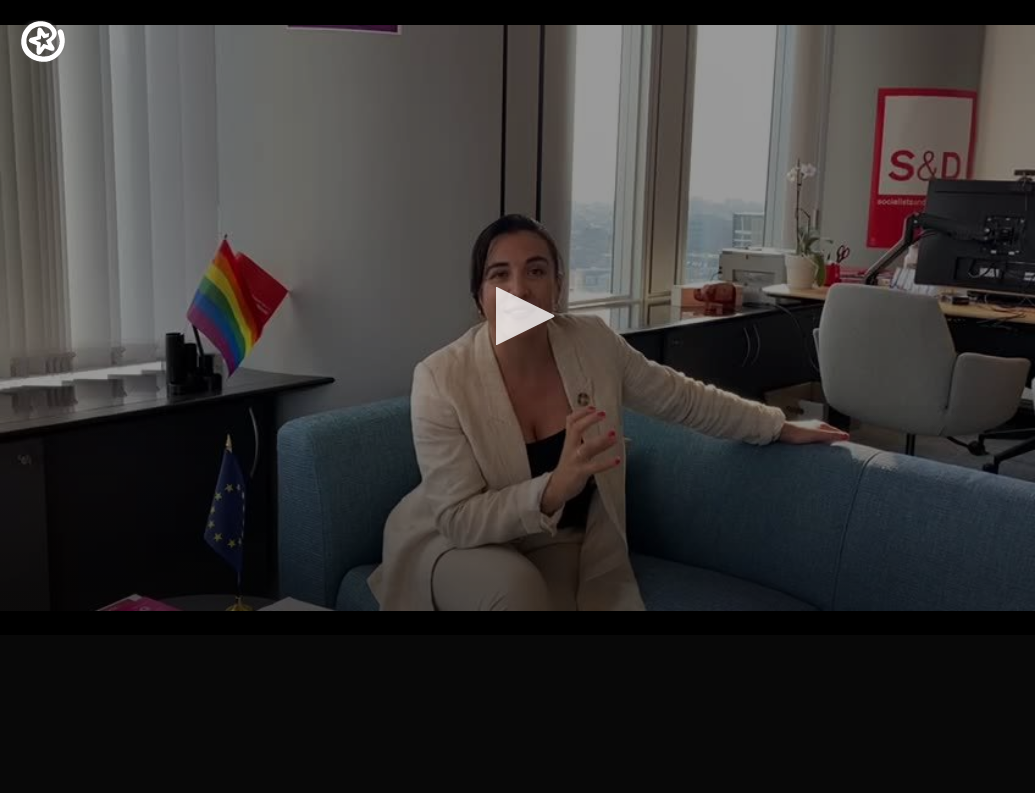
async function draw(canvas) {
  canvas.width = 1035;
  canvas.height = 793;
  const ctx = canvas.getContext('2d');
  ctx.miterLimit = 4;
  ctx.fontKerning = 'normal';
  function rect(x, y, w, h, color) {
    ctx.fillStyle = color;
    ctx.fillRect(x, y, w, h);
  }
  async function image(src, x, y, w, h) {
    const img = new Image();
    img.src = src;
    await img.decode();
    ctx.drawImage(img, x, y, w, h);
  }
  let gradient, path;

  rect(0, 0, 1035, 793, '#080808');
  rect(0, 0, 1035, 635, '#000');
  await image('assets/img2.png', 0, 25, 1035, 586);
  await image('assets/img1.png', 20, 20, 45, 43);
  ctx.fillStyle = '#ffffffcc';
  path = new Path2D('M497 345H496V287H497L554 315C554 316 555 316 554 317Z');
  ctx.fill(path);
  gradient = ctx.createLinearGradient(518, 395, 518, 635);
  gradient.addColorStop(0, '#00000000');
  gradient.addColorStop(0.77, '#00000066');
  gradient.addColorStop(1, '#00000066');
  ctx.fillStyle = gradient;
  ctx.fillRect(0, 405, 1035, 206);
}

draw(document.querySelector('canvas'));
